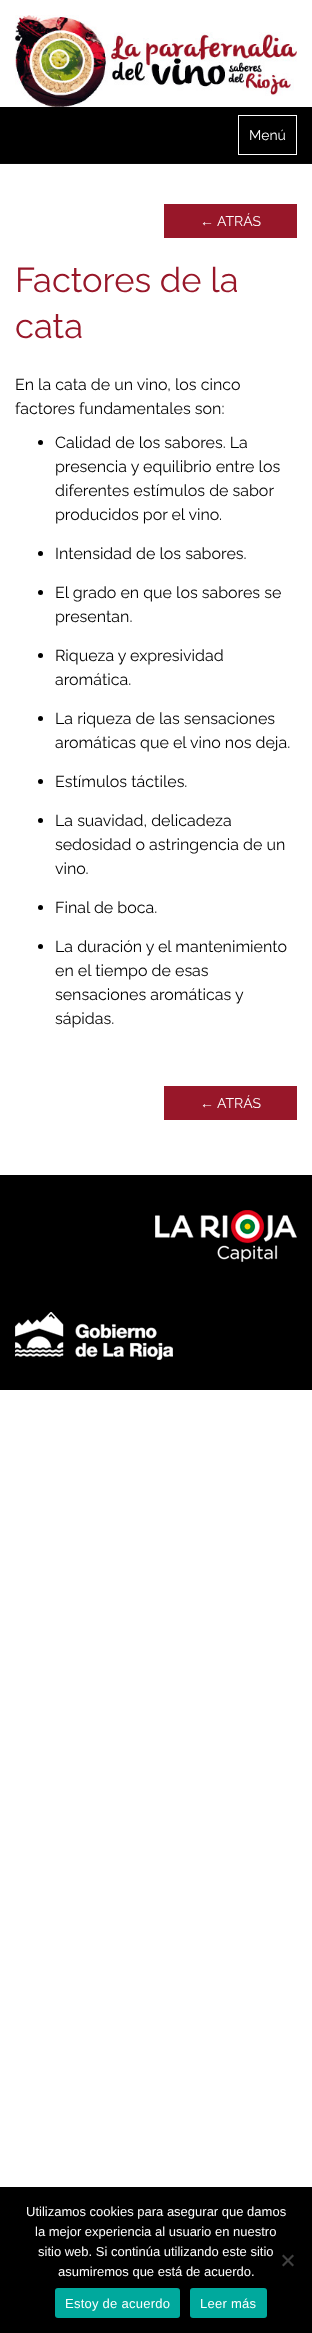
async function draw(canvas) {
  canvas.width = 312;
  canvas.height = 2333;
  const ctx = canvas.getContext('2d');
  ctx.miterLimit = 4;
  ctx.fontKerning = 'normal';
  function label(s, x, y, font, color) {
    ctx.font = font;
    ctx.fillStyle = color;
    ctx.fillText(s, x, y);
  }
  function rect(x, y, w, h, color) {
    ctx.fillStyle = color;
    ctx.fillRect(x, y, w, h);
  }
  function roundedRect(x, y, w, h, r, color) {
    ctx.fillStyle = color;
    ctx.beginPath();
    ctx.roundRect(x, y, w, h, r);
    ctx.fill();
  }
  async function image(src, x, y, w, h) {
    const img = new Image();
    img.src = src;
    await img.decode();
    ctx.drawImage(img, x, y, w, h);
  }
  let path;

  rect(0, 0, 312, 2333, '#fff');
  await image('assets/img1.png', 15, 15, 282, 92);
  rect(0, 107, 312, 56, '#000');
  rect(0, 163, 312, 1, '#080808');
  ctx.strokeStyle = '#fff';
  ctx.strokeRect(238.5, 115.5, 58, 39);
  label('Menú', 249, 140, '100 14px Raleway', '#fff');
  rect(164, 204, 133, 34, '#981729');
  label('←', 200, 226, '14px Liberation Sans', '#fff');
  label('ATRÁS', 217, 226, '100 14px Raleway', '#fff');
  label('Factores de la', 15, 292, '100 34.5px Raleway', '#981729');
  label('cata', 15, 338, '100 34.5px Raleway', '#981729');
  label('En la cata de un vino, los cinco', 15, 390, '100 16px Raleway', '#000');
  label('factores fundamentales son:', 15, 414, '100 16px Raleway', '#000');
  ctx.beginPath();
  ctx.arc(40.5, 442.5, 2.5, 0, 2 * Math.PI);
  ctx.fill();
  label('Calidad de los sabores. La', 55, 448, '100 16px Raleway', '#000');
  label('presencia y equilibrio entre los', 55, 472, '100 16px Raleway', '#000');
  label('diferentes estímulos de sabor', 55, 496, '100 16px Raleway', '#000');
  label('producidos por el vino.', 55, 520, '100 16px Raleway', '#000');
  ctx.beginPath();
  ctx.arc(40.5, 553.5, 2.5, 0, 2 * Math.PI);
  ctx.fill();
  label('Intensidad de los sabores.', 55, 559, '100 16px Raleway', '#000');
  ctx.beginPath();
  ctx.arc(40.5, 592.5, 2.5, 0, 2 * Math.PI);
  ctx.fill();
  label('El grado en que los sabores se', 55, 598, '100 16px Raleway', '#000');
  label('presentan.', 55, 622, '100 16px Raleway', '#000');
  ctx.beginPath();
  ctx.arc(40.5, 655.5, 2.5, 0, 2 * Math.PI);
  ctx.fill();
  label('Riqueza y expresividad', 55, 661, '100 16px Raleway', '#000');
  label('aromática.', 55, 685, '100 16px Raleway', '#000');
  ctx.beginPath();
  ctx.arc(40.5, 718.5, 2.5, 0, 2 * Math.PI);
  ctx.fill();
  label('La riqueza de las sensaciones', 55, 724, '100 16px Raleway', '#000');
  label('aromáticas que el vino nos deja.', 55, 748, '100 16px Raleway', '#000');
  ctx.beginPath();
  ctx.arc(40.5, 781.5, 2.5, 0, 2 * Math.PI);
  ctx.fill();
  label('Estímulos táctiles.', 55, 787, '100 16px Raleway', '#000');
  ctx.beginPath();
  ctx.arc(40.5, 820.5, 2.5, 0, 2 * Math.PI);
  ctx.fill();
  label('La suavidad, delicadeza', 55, 826, '100 16px Raleway', '#000');
  label('sedosidad o astringencia de un', 55, 850, '100 16px Raleway', '#000');
  label('vino.', 55, 874, '100 16px Raleway', '#000');
  ctx.beginPath();
  ctx.arc(40.5, 907.5, 2.5, 0, 2 * Math.PI);
  ctx.fill();
  label('Final de boca.', 55, 913, '100 16px Raleway', '#000');
  ctx.beginPath();
  ctx.arc(40.5, 946.5, 2.5, 0, 2 * Math.PI);
  ctx.fill();
  label('La duración y el mantenimiento', 55, 952, '100 16px Raleway', '#000');
  label('en el tiempo de esas', 55, 976, '100 16px Raleway', '#000');
  label('sensaciones aromáticas y', 55, 1000, '100 16px Raleway', '#000');
  label('sápidas.', 55, 1024, '100 16px Raleway', '#000');
  rect(164, 1086, 133, 34, '#981729');
  label('←', 200, 1108, '14px Liberation Sans', '#fff');
  label('ATRÁS', 217, 1108, '100 14px Raleway', '#fff');
  rect(0, 1175, 312, 215, '#000');
  await image('assets/img2.png', 155, 1210, 142, 52);
  await image('assets/img3.png', 15, 1312, 158, 48);
  rect(0, 2187, 312, 146, '#000');
  label('Utilizamos cookies para asegurar que damos', 26, 2216, '13px Liberation Sans', '#fff');
  label('la mejor experiencia al usuario en nuestro', 35, 2236, '13px Liberation Sans', '#fff');
  label('sitio web. Si continúa utilizando este sitio', 38, 2256, '13px Liberation Sans', '#fff');
  label('asumiremos que está de acuerdo.', 58, 2276, '13px Liberation Sans', '#fff');
  ctx.fillStyle = '#404040';
  path = new Path2D('M292.5 2254.5L294 2256L283.5 2266.5L282 2265Z');
  ctx.fill(path);
  path = new Path2D('M282 2256L283.5 2254.5L294 2265L292.5 2266.5Z');
  ctx.fill(path);
  roundedRect(55, 2288, 125, 30, 3, '#00a99d');
  ctx.letterSpacing = '0.25px';
  label('Estoy de acuerdo', 65, 2308, '13px Liberation Sans', '#fff');
  roundedRect(190, 2288, 77, 30, 3, '#00a99d');
  label('Leer más', 200, 2308, '13px Liberation Sans', '#fff');
}

draw(document.querySelector('canvas'));
